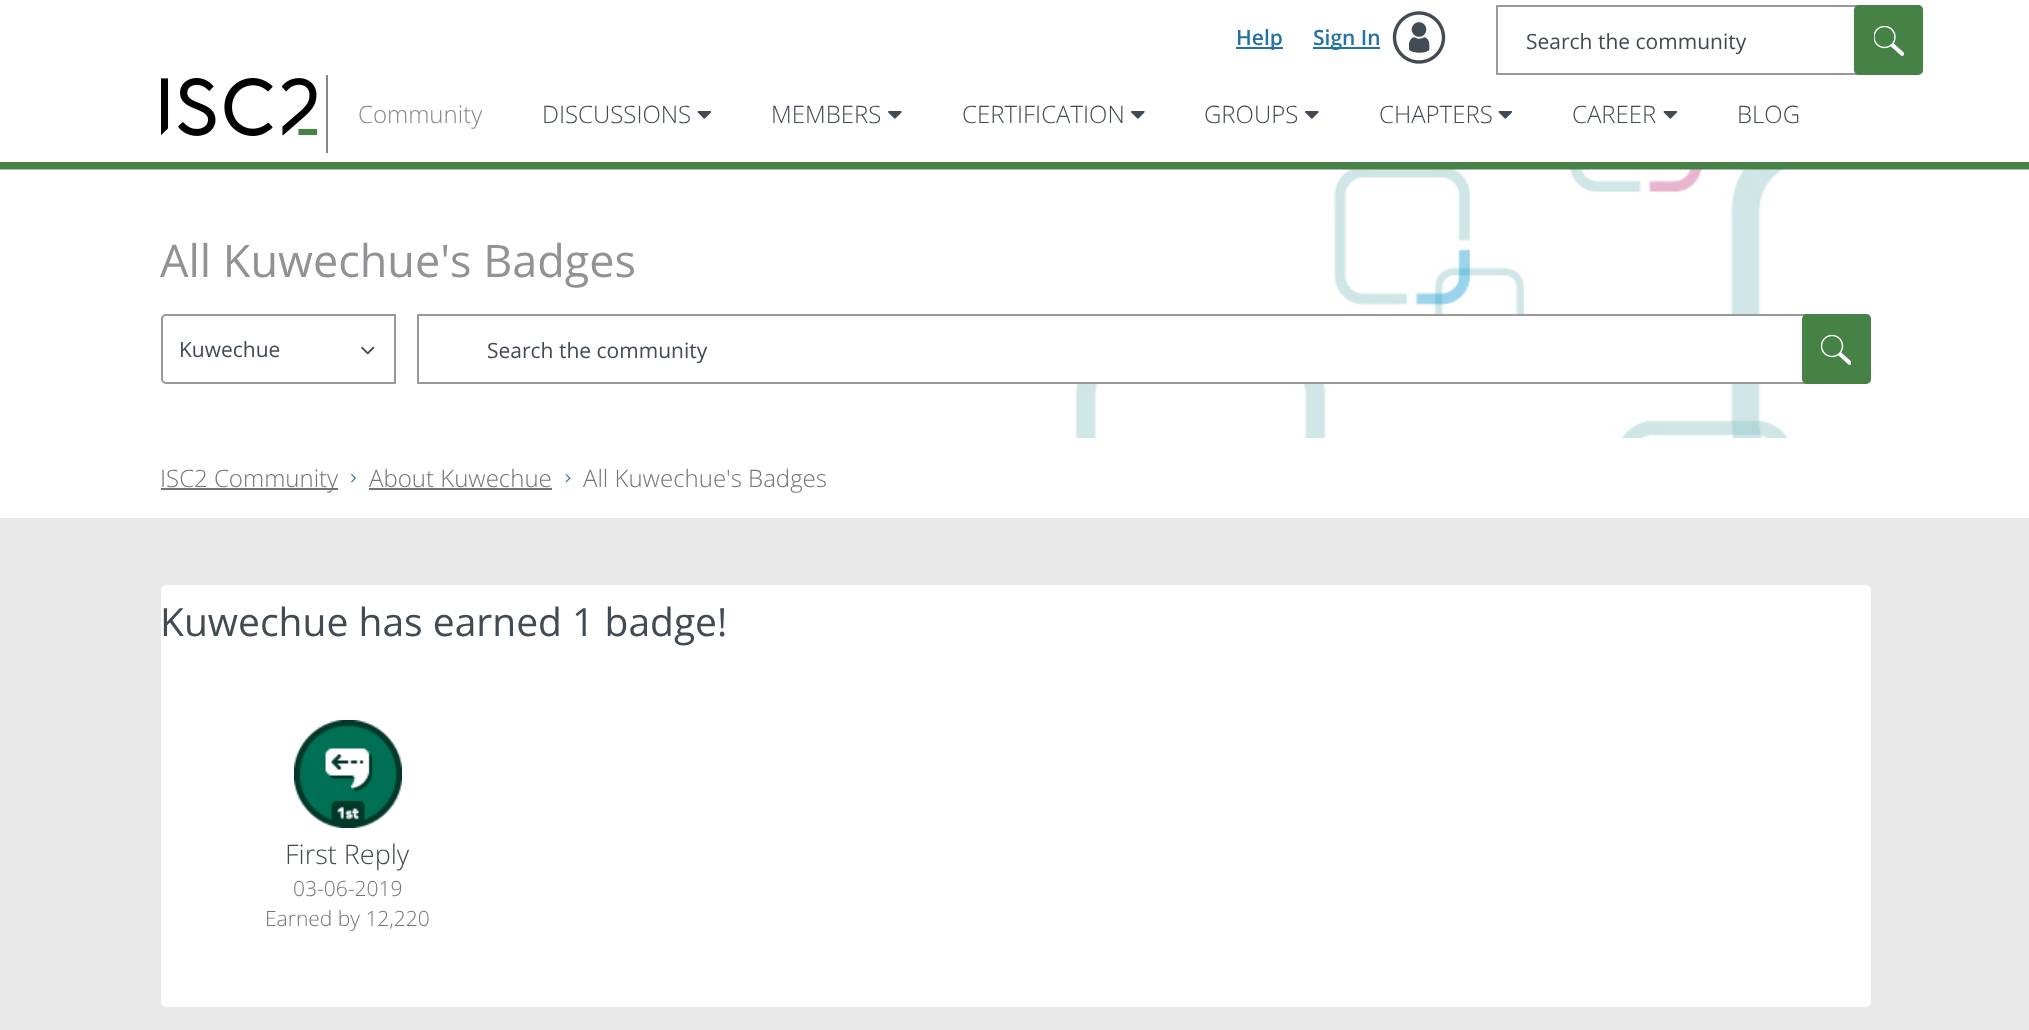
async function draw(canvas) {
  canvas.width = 2029;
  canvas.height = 1030;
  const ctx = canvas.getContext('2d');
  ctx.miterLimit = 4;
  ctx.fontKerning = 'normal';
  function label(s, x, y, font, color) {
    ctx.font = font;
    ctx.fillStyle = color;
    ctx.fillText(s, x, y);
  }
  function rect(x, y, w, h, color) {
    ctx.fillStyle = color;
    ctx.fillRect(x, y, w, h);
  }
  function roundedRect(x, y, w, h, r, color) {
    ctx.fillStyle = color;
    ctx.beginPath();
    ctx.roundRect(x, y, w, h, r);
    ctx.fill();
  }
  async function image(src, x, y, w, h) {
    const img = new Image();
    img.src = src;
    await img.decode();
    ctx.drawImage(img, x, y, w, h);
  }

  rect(0, 0, 2029, 1030, '#e8e8e8');
  rect(0, 0, 2029, 518, '#fff');
  rect(1236, 47, 47, 2, '#2272a5');
  label('Help', 1236, 45, '600 21px Open Sans', '#2272a5');
  rect(1313, 47, 67, 2, '#2272a5');
  label('Sign In', 1313, 45, '600 21px Open Sans', '#2272a5');
  await image('assets/img1.png', 1392, 11, 54, 53);
  ctx.beginPath();
  ctx.roundRect(1497, 6, 425, 68, [0, 4, 4, 0]);
  ctx.strokeStyle = '#999';
  ctx.lineWidth = 2;
  ctx.stroke();
  label('Search the community', 1526, 49, '21px Open Sans', '#424a54');
  roundedRect(1854, 5, 69, 70, 5, '#468145');
  await image('assets/img2.png', 1874, 26, 30, 30);
  rect(0, 162, 2029, 8, '#468145');
  rect(326, 75, 2, 78, '#83878c');
  await image('assets/img3.png', 161, 78, 157, 58);
  label('Community', 358, 123, '300 24px Open Sans', '#83878c');
  label('DISCUSSIONS', 542, 123, '300 24px Open Sans', '#424a54');
  await image('assets/img4.png', 697, 111, 15, 8);
  label('MEMBERS', 771, 123, '300 24px Open Sans', '#424a54');
  await image('assets/img5.png', 888, 111, 14, 8);
  label('CERTIFICATION', 962, 123, '300 24px Open Sans', '#424a54');
  await image('assets/img5.png', 1131, 111, 14, 8);
  label('GROUPS', 1204, 123, '300 24px Open Sans', '#424a54');
  await image('assets/img5.png', 1305, 111, 14, 8);
  label('CHAPTERS', 1379, 123, '300 24px Open Sans', '#424a54');
  await image('assets/img4.png', 1498, 111, 15, 8);
  label('CAREER', 1572, 123, '300 24px Open Sans', '#424a54');
  await image('assets/img4.png', 1663, 111, 15, 8);
  label('BLOG', 1737, 123, '300 24px Open Sans', '#424a54');
  await image('assets/img6.png', 0, 169, 2029, 269);
  label('All Kuwechue\'s Badges', 160, 277, '45px Open Sans', '#909296');
  ctx.beginPath();
  ctx.roundRect(162, 315, 233, 68, [4, 0, 0, 4]);
  ctx.stroke();
  label('Kuwechue', 179, 357, '21px Open Sans', '#424a54');
  await image('assets/img7.png', 361, 346, 14, 9);
  ctx.fillStyle = '#fff';
  ctx.beginPath();
  ctx.roundRect(418, 315, 1452, 68, [0, 4, 4, 0]);
  ctx.fill();
  ctx.stroke();
  label('Search the community', 487, 358, '21px Open Sans', '#424a54');
  roundedRect(1802, 314, 69, 70, 5, '#468145');
  await image('assets/img8.png', 1821, 335, 30, 30);
  rect(161, 488, 177, 2, '#747474');
  label('ISC2 Community', 160, 487, '300 24px Open Sans', '#747474');
  await image('assets/img9.png', 351, 474, 5, 9);
  label('About Kuwechue', 369, 487, '300 24px Open Sans', '#747474');
  rect(369, 488, 183, 2, '#747474');
  await image('assets/img10.png', 565, 474, 6, 9);
  label('All Kuwechue\'s Badges', 583, 487, '300 24px Open Sans', '#747474');
  roundedRect(161, 585, 1710, 422, 5, '#fff');
  label('Kuwechue has earned 1 badge!', 160, 636, '39px Open Sans', '#424a54');
  await image('assets/img11.png', 294, 720, 108, 108);
  label('First Reply', 285, 864, '300 27px Open Sans', '#424a54');
  label('03-06-2019', 293, 896, '300 21px Open Sans', '#747474');
  label('Earned by 12,220', 265, 926, '300 21px Open Sans', '#747474');
}

draw(document.querySelector('canvas'));
